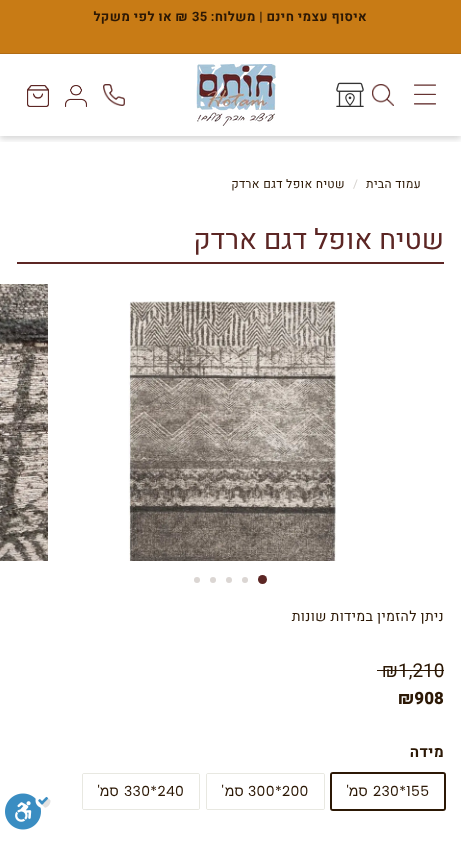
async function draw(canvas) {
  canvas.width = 461;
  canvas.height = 841;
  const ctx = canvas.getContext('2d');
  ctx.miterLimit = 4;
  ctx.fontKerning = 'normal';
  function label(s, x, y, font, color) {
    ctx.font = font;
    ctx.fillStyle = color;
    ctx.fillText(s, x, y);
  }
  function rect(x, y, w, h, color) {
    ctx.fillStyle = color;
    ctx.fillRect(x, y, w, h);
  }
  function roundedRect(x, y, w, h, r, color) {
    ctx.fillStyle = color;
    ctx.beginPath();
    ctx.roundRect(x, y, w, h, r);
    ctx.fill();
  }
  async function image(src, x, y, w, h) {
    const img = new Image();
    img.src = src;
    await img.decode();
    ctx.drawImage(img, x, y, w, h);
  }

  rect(0, 0, 461, 841, '#fff');
  ctx.save();
  ctx.beginPath();
  ctx.rect(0, 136, 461, 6);
  ctx.clip();
  ctx.fillStyle = '#00000029';
  ctx.filter = 'blur(3px)';
  ctx.beginPath();
  ctx.rect(0, 57, 461, 82);
  ctx.fill();
  ctx.filter = 'none';
  ctx.restore();
  rect(0, 0, 461, 53, '#c87b15');
  ctx.letterSpacing = '0.35px';
  ctx.direction = 'rtl';
  label('איסוף עצמי חינם | משלוח:', 367, 21, 'bold 13px Heebo', '#2c1805');
  ctx.direction = 'ltr';
  label('35', 192, 21, 'bold 13px Heebo', '#2c1805');
  ctx.direction = 'rtl';
  label('₪ או לפי משקל', 188, 21, 'bold 13px Heebo', '#2c1805');
  rect(0, 53, 461, 1, '#b16c13');
  await image('assets/img1.png', 414, 84, 22, 21);
  await image('assets/img2.png', 372, 84, 22, 22);
  await image('assets/img3.png', 336, 82, 28, 25);
  await image('assets/img4.png', 196, 64, 80, 62);
  await image('assets/img5.png', 103, 84, 22, 22);
  await image('assets/img6.png', 65, 85, 22, 22);
  await image('assets/img7.png', 27, 85, 22, 22);
  label('עמוד הבית', 421, 188, '12px Heebo', '#2c1805');
  ctx.direction = 'ltr';
  label('/', 353, 188, '12px Heebo', '#d5d1cd');
  ctx.direction = 'rtl';
  label('שטיח אופל דגם ארדק', 345, 188, '12px Heebo', '#2c1805');
  rect(17, 262, 427, 2, '#5c2624');
  ctx.letterSpacing = '0px';
  label('שטיח אופל דגם ארדק', 444, 249, '28px Heebo', '#5c2624');
  await image('assets/img8.png', 128, 301, 209, 260);
  await image('assets/img9.png', 0, 284, 48, 277);
  ctx.beginPath();
  ctx.arc(262.5, 579.5, 4.5, 0, 2 * Math.PI);
  ctx.fill();
  ctx.fillStyle = '#dbd6d3';
  ctx.beginPath();
  ctx.arc(245, 580, 3, 0, 2 * Math.PI);
  ctx.fill();
  ctx.beginPath();
  ctx.arc(229, 580, 3, 0, 2 * Math.PI);
  ctx.fill();
  ctx.beginPath();
  ctx.arc(213, 580, 3, 0, 2 * Math.PI);
  ctx.fill();
  ctx.beginPath();
  ctx.arc(197, 580, 3, 0, 2 * Math.PI);
  ctx.fill();
  ctx.letterSpacing = '0.35px';
  label('ניתן להזמין במידות שונות', 444, 621, '14px Heebo', '#2c1805');
  ctx.letterSpacing = '0px';
  ctx.direction = 'ltr';
  label('₪1,210', 382, 677, '19px Heebo', '#2c1805');
  rect(377, 670, 67, 1, '#2c1805');
  label('₪908', 398, 704, '800 17px Heebo', '#2c1805');
  ctx.letterSpacing = '0.35px';
  ctx.direction = 'rtl';
  label('מידה', 444, 757, 'bold 15px Heebo', '#2c1805');
  ctx.beginPath();
  ctx.roundRect(331, 773, 114, 37, 2);
  ctx.strokeStyle = '#2c1805';
  ctx.lineWidth = 2;
  ctx.stroke();
  roundedRect(332, 774, 112, 35, 1, '#fff');
  ctx.direction = 'ltr';
  label('230*155', 373, 796, '14px Poppins', '#2c1805');
  ctx.direction = 'rtl';
  label('סמ', 368, 796, '14px Liberation Sans', '#2c1805');
  label('\'', 349, 796, '14px Poppins', '#2c1805');
  ctx.beginPath();
  ctx.roundRect(206.5, 773.5, 118, 36, 1.5);
  ctx.strokeStyle = '#e8e8e1';
  ctx.lineWidth = 1;
  ctx.stroke();
  roundedRect(207, 774, 117, 35, 1, '#fff');
  ctx.direction = 'ltr';
  label('300*200', 248, 796, '14px Poppins', '#2c1805');
  ctx.direction = 'rtl';
  label('סמ', 244, 796, '14px Liberation Sans', '#2c1805');
  label('\'', 224, 796, '14px Poppins', '#2c1805');
  ctx.beginPath();
  ctx.roundRect(82.5, 773.5, 117, 36, 1.5);
  ctx.stroke();
  roundedRect(83, 774, 116, 35, 1, '#fff');
  ctx.direction = 'ltr';
  label('330*240', 124, 796, '14px Poppins', '#2c1805');
  ctx.direction = 'rtl';
  label('סמ', 119, 796, '14px Liberation Sans', '#2c1805');
  label('\'', 100, 796, '14px Poppins', '#2c1805');
  await image('assets/img10.png', 5, 793, 46, 37);
}

draw(document.querySelector('canvas'));
